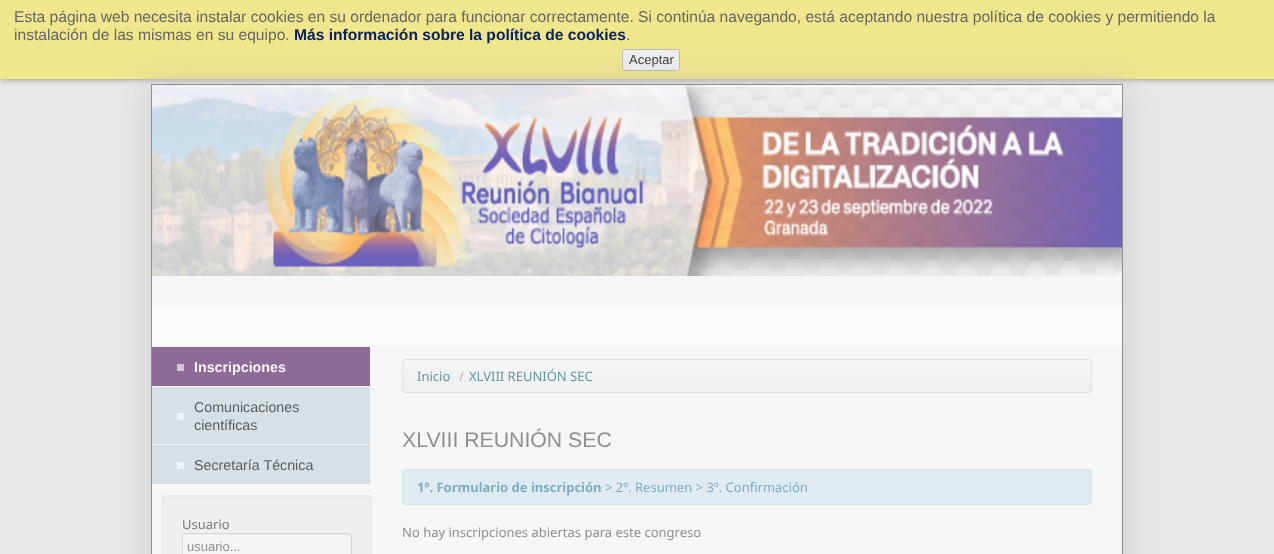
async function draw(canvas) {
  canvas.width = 1274;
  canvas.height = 554;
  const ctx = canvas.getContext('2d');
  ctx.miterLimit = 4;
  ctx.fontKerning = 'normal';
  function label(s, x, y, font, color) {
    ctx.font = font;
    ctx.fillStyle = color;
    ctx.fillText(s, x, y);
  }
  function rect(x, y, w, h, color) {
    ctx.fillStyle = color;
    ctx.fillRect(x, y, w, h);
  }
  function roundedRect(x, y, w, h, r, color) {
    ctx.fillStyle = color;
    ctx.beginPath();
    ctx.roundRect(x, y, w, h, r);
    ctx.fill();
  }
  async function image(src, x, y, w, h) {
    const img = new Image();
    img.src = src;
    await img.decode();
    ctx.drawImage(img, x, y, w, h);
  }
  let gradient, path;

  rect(0, 0, 1274, 554, '#e7e7e7');
  ctx.fillStyle = '#888';
  ctx.filter = 'blur(3px)';
  ctx.beginPath();
  ctx.rect(0, 0, 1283, 79);
  ctx.fill();
  ctx.filter = 'none';
  rect(0, 0, 1274, 79, '#f0e68c');
  label('Esta página web necesita instalar cookies en su ordenador para funcionar correctamente. Si continúa navegando, está aceptando nuestra política de cookies y permitiendo la', 14, 22, '15.6px Liberation Sans', '#666');
  label('instalación de las mismas en su equipo.', 14, 40, '15.6px Liberation Sans', '#666');
  label('Más información sobre la política de cookies', 294, 40, 'bold 15.6px Liberation Sans', '#0b2161');
  label('.', 626, 40, '15.6px Liberation Sans', '#666');
  ctx.fillStyle = '#efefef';
  ctx.beginPath();
  ctx.roundRect(622.5, 49.5, 57, 21, 2.5);
  ctx.fill();
  ctx.strokeStyle = '#bbb';
  ctx.stroke();
  label('Aceptar', 629, 64, '13px Liberation Sans', '#363636');
  ctx.fillStyle = '#bbbbbb99';
  ctx.filter = 'blur(17.5px)';
  ctx.beginPath();
  ctx.rect(151, 84, 972, 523);
  ctx.fill();
  ctx.filter = 'none';
  ctx.strokeStyle = '#5c5c5c99';
  ctx.strokeRect(151.5, 84.5, 971, 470);
  rect(152, 85, 970, 222, '#f6f6f6');
  rect(152, 346, 970, 1, '#f5f5f5');
  await image('assets/img1.png', 152, 85, 970, 191);
  rect(152, 307, 970, 39, '#fbfbfb');
  rect(152, 347, 970, 207, '#f6f6f6');
  rect(152, 347, 218, 39, '#8d6a98');
  rect(177, 364, 7, 7, '#d1c3d6');
  label('Inscripciones', 194, 372, 'bold 14.25px Liberation Sans', '#f5f5f5');
  rect(152, 387, 218, 57, '#d7e0e6');
  rect(177, 413, 7, 7, '#eff3f5');
  label('Comunicaciones', 194, 412, '14.25px Liberation Sans', '#5c5c5c');
  label('científicas', 194, 430, '14.25px Liberation Sans', '#5c5c5c');
  rect(152, 445, 218, 39, '#d7e0e6');
  rect(177, 462, 7, 7, '#eff3f5');
  label('Secretaría Técnica', 194, 470, '14.25px Liberation Sans', '#5c5c5c');
  roundedRect(162, 495, 210, 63, 4, '#efefef');
  ctx.fillStyle = '#e8e8e8';
  path = new Path2D('M166 497H368C370 497 371 498 371 500C371 498 370 496 368 496H165C163 497 163 498 163 500C163 498 164 497 166 497Z');
  ctx.fill(path);
  ctx.beginPath();
  ctx.roundRect(162.5, 495.5, 209, 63, 3.5);
  ctx.strokeStyle = '#e8e8e8';
  ctx.stroke();
  label('Usuario', 182, 529, '13px Noto Sans', '#7b7b7b');
  roundedRect(182, 533, 170, 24, 3, '#f5f5f5');
  ctx.fillStyle = '#eaeaea';
  path = new Path2D('M185 535H349C350 535 351 536 351 537C351 536 351 534 349 534H185C183 534 183 536 183 537C183 536 184 535 185 535Z');
  ctx.fill(path);
  ctx.beginPath();
  ctx.roundRect(182.5, 533.5, 169, 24, 2.5);
  ctx.strokeStyle = '#d7d7d7';
  ctx.stroke();
  label('usuario...', 187, 551, '13px Liberation Sans', '#8f8f8f');
  ctx.save();
  ctx.beginPath();
  ctx.roundRect(402, 359, 690, 34, 3);
  ctx.clip();
  gradient = ctx.createLinearGradient(747, 360, 747, 392);
  gradient.addColorStop(0, '#f5f5f5');
  gradient.addColorStop(1, '#efefef');
  ctx.fillStyle = gradient;
  ctx.fillRect(402, 360, 690, 32);
  ctx.restore();
  ctx.beginPath();
  ctx.roundRect(402.5, 359.5, 689, 33, 2.5);
  ctx.strokeStyle = '#e1e1e1';
  ctx.stroke();
  label('Inicio', 417, 381, '13px Noto Sans', '#5c98a7');
  label('/', 459, 381, '13px Noto Sans', '#b8b8b8');
  label('XLVIII REUNIÓN SEC', 469, 381, '13px Noto Sans', '#5c98a7');
  label('XLVIII REUNIÓN SEC', 402, 447, '21.25px Liberation Sans', '#8f8f8f');
  ctx.fillStyle = '#dfebf1';
  ctx.beginPath();
  ctx.roundRect(402.5, 469.5, 689, 35, 3.5);
  ctx.fill();
  ctx.strokeStyle = '#cde8ed';
  ctx.stroke();
  label('1º. Formulario de inscripción', 417, 492, 'bold 13px Noto Sans', '#7fadc4');
  label('> 2º. Resumen > 3º. Confirmación', 605, 492, '13px Noto Sans', '#7fadc4');
  label('No hay inscripciones abiertas para este congreso', 402, 537, '13px Noto Sans', '#8f8f8f');
}

draw(document.querySelector('canvas'));
